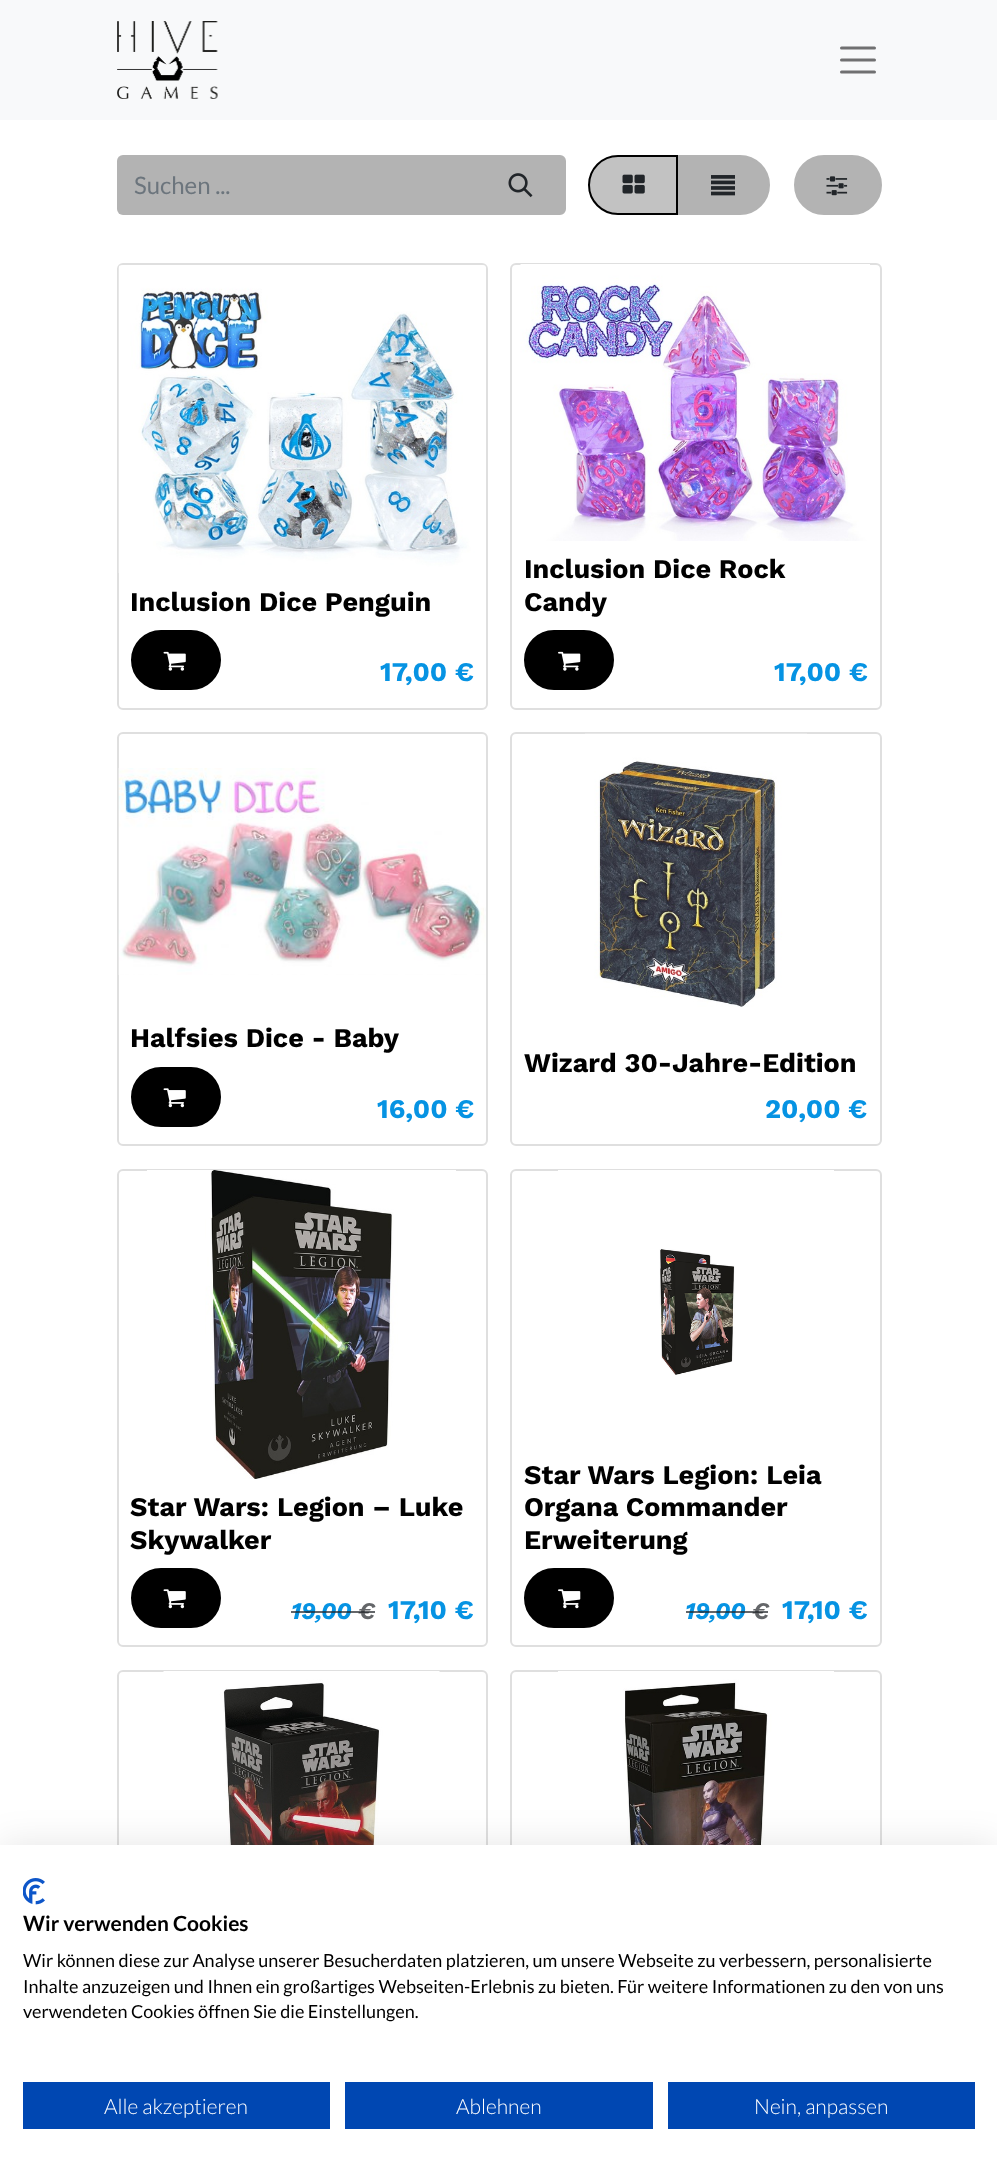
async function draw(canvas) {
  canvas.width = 997;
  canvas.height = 2168;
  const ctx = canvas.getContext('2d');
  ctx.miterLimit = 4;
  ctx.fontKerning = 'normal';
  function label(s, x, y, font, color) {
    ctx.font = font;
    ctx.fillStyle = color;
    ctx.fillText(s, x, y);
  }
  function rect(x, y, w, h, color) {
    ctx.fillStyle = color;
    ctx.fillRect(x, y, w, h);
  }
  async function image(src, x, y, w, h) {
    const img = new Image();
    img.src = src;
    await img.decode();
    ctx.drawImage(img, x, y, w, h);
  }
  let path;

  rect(0, 0, 997, 2168, '#fff');
  rect(0, 0, 997, 120, '#f8f9fa');
  await image('assets/img1.png', 117, 21, 101, 78);
  path = new Path2D('M841.5 48H874.5M841.5 60H874.5M841.5 72H874.5');
  ctx.strokeStyle = '#707071';
  ctx.lineWidth = 3;
  ctx.lineCap = 'round';
  ctx.stroke(path);
  ctx.fillStyle = '#b3b3b3';
  ctx.beginPath();
  ctx.roundRect(117, 155, 359, 60, [6, 0, 0, 6]);
  ctx.fill();
  label('Suchen ...', 134, 194, '24px Lato', '#6c757d');
  ctx.fillStyle = '#b3b3b3';
  ctx.beginPath();
  ctx.roundRect(475, 156, 90, 58, [0, 5, 5, 0]);
  ctx.fill();
  ctx.strokeStyle = '#b3b3b3';
  ctx.lineWidth = 2;
  ctx.stroke();
  await image('assets/img2.png', 508, 173, 25, 25);
  ctx.beginPath();
  ctx.roundRect(678, 156, 91, 58, [0, 29, 29, 0]);
  ctx.fill();
  ctx.stroke();
  ctx.fillStyle = '#c2c2c2';
  ctx.beginPath();
  ctx.roundRect(589, 156, 88, 58, [29, 0, 0, 29]);
  ctx.fill();
  ctx.strokeStyle = '#000';
  ctx.stroke();
  await image('assets/img3.png', 622, 174, 23, 20);
  await image('assets/img4.png', 711, 175, 24, 21);
  ctx.fillStyle = '#b3b3b3';
  ctx.beginPath();
  ctx.roundRect(795, 156, 86, 58, 29);
  ctx.fill();
  ctx.strokeStyle = '#b3b3b3';
  ctx.stroke();
  await image('assets/img5.png', 826, 176, 22, 20);
  ctx.beginPath();
  ctx.roundRect(118, 264, 369, 445, 5);
  ctx.strokeStyle = '#dfdfdf';
  ctx.stroke();
  await image('assets/img6.png', 118, 265, 368, 308);
  label('Inclusion Dice Penguin', 130, 611, 'bold 27px Work Sans', '#000');
  ctx.beginPath();
  ctx.roundRect(132, 631, 88, 58, 29);
  ctx.fill();
  ctx.strokeStyle = '#000';
  ctx.stroke();
  await image('assets/img7.png', 163, 651, 23, 20);
  label('17,00 €', 380, 681, 'bold 27px Work Sans', '#0693e3');
  ctx.beginPath();
  ctx.roundRect(511, 264, 370, 445, 5);
  ctx.strokeStyle = '#dfdfdf';
  ctx.stroke();
  await image('assets/img8.png', 520, 264, 350, 277);
  label('Inclusion Dice Rock', 524, 578, 'bold 27px Work Sans', '#000');
  label('Candy', 524, 611, 'bold 27px Work Sans', '#000');
  ctx.beginPath();
  ctx.roundRect(525, 631, 88, 58, 29);
  ctx.fill();
  ctx.strokeStyle = '#000';
  ctx.stroke();
  await image('assets/img9.png', 558, 651, 23, 20);
  label('17,00 €', 774, 681, 'bold 27px Work Sans', '#0693e3');
  ctx.beginPath();
  ctx.roundRect(118, 733, 369, 412, 5);
  ctx.strokeStyle = '#dfdfdf';
  ctx.stroke();
  await image('assets/img10.png', 118, 768, 368, 207);
  label('Halfsies Dice - Baby', 130, 1047, 'bold 27px Work Sans', '#000');
  ctx.beginPath();
  ctx.roundRect(132, 1068, 88, 58, 29);
  ctx.fill();
  ctx.strokeStyle = '#000';
  ctx.stroke();
  await image('assets/img11.png', 163, 1088, 23, 20);
  label('16,00 €', 377, 1118, 'bold 27px Work Sans', '#0693e3');
  ctx.beginPath();
  ctx.roundRect(511, 733, 370, 412, 5);
  ctx.strokeStyle = '#dfdfdf';
  ctx.stroke();
  await image('assets/img12.png', 585, 733, 222, 274);
  label('Wizard 30-Jahre-Edition', 524, 1072, 'bold 27px Work Sans', '#000');
  label('20,00 €', 765, 1118, 'bold 27px Work Sans', '#0693e3');
  ctx.beginPath();
  ctx.roundRect(118, 1170, 369, 476, 5);
  ctx.stroke();
  await image('assets/img13.png', 147, 1170, 309, 309);
  label('Star Wars: Legion – Luke', 130, 1516, 'bold 27px Work Sans', '#000');
  label('Skywalker', 130, 1549, 'bold 27px Work Sans', '#000');
  ctx.beginPath();
  ctx.roundRect(132, 1569, 88, 58, 29);
  ctx.fill();
  ctx.strokeStyle = '#000';
  ctx.stroke();
  await image('assets/img11.png', 163, 1589, 23, 20);
  label('19,00', 291, 1619, 'italic bold 24px Work Sans', '#0693e3');
  rect(291, 1611, 60, 2, '#212529b3');
  label('€', 358, 1619, 'italic bold 24px Work Sans', '#646669');
  rect(351, 1611, 24, 2, '#212529b3');
  label('17,10 €', 388, 1619, 'bold 27px Work Sans', '#0693e3');
  ctx.beginPath();
  ctx.roundRect(511, 1170, 370, 476, 5);
  ctx.strokeStyle = '#dfdfdf';
  ctx.stroke();
  await image('assets/img14.png', 558, 1170, 276, 205);
  label('Star Wars Legion: Leia', 524, 1484, 'bold 27px Work Sans', '#000');
  label('Organa Commander', 524, 1516, 'bold 27px Work Sans', '#000');
  label('Erweiterung', 524, 1549, 'bold 27px Work Sans', '#000');
  ctx.beginPath();
  ctx.roundRect(525, 1569, 88, 58, 29);
  ctx.fill();
  ctx.strokeStyle = '#000';
  ctx.stroke();
  await image('assets/img15.png', 558, 1589, 23, 20);
  label('19,00', 685, 1619, 'italic bold 24px Work Sans', '#0693e3');
  rect(686, 1611, 60, 2, '#212529b3');
  label('€', 752, 1619, 'italic bold 24px Work Sans', '#646669');
  rect(746, 1611, 22, 2, '#212529b3');
  label('17,10 €', 782, 1619, 'bold 27px Work Sans', '#0693e3');
  ctx.beginPath();
  ctx.roundRect(118, 1671, 369, 445, 5);
  ctx.strokeStyle = '#dfdfdf';
  ctx.stroke();
  await image('assets/img16.png', 163, 1671, 277, 174);
  ctx.beginPath();
  ctx.roundRect(511, 1671, 370, 445, 5);
  ctx.stroke();
  await image('assets/img17.png', 558, 1671, 276, 174);
  ctx.fillStyle = '#0000001a';
  ctx.filter = 'blur(18px)';
  ctx.beginPath();
  ctx.rect(0, 1845, 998, 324);
  ctx.fill();
  ctx.filter = 'none';
  rect(0, 1845, 997, 323, '#fff');
  await image('assets/img18.png', 23, 1878, 22, 27);
  label('Wir verwenden Cookies', 23, 1931, 'bold 21px Lato', '#000');
  label('Wir können diese zur Analyse unserer Besucherdaten platzieren, um unsere Webseite zu verbessern, personalisierte', 23, 1967, '18px Lato', '#000');
  label('Inhalte anzuzeigen und Ihnen ein großartiges Webseiten-Erlebnis zu bieten. Für weitere Informationen zu den von uns', 23, 1993, '18px Lato', '#000');
  label('verwendeten Cookies öffnen Sie die Einstellungen.', 23, 2018, '18px Lato', '#000');
  rect(23, 2082, 307, 47, '#0047b2');
  label('Alle akzeptieren', 104, 2114, '300 21px Lato', '#fff');
  rect(345, 2082, 308, 47, '#0047b2');
  label('Ablehnen', 456, 2114, '300 21px Lato', '#fff');
  rect(668, 2082, 307, 47, '#0047b2');
  label('Nein, anpassen', 754, 2114, '300 21px Lato', '#fff');
}

draw(document.querySelector('canvas'));
